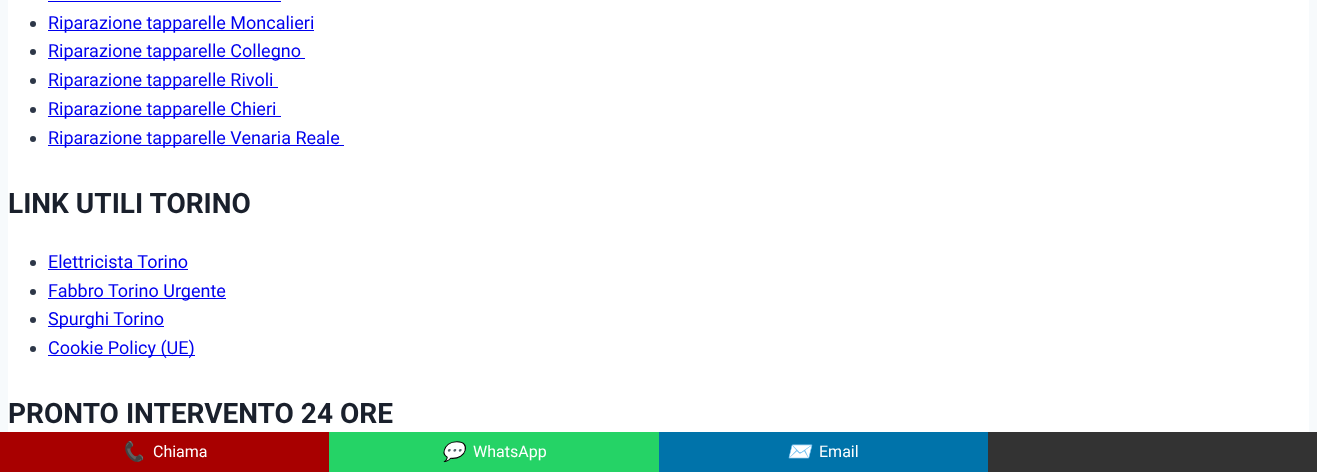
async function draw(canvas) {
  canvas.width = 1317;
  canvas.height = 472;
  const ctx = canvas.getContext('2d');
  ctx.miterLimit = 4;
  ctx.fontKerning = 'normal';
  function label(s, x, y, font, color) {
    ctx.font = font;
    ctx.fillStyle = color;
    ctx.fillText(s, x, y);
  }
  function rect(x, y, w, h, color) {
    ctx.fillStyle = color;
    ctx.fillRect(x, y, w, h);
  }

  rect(0, 0, 1317, 472, '#f7fafc');
  rect(8, 0, 1301, 432, '#fff');
  rect(48, 1, 233, 1, '#00e');
  ctx.fillStyle = '#2d3748';
  ctx.beginPath();
  ctx.arc(33, 24, 3, 0, 2 * Math.PI);
  ctx.fill();
  rect(48, 30, 266, 1, '#00e');
  label('Riparazione tapparelle Moncalieri', 48, 29, '18px Roboto', '#00e');
  ctx.fillStyle = '#2d3748';
  ctx.beginPath();
  ctx.arc(33, 52, 3, 0, 2 * Math.PI);
  ctx.fill();
  rect(48, 58, 257, 1, '#00e');
  label('Riparazione tapparelle Collegno', 48, 57, '18px Roboto', '#00e');
  ctx.fillStyle = '#2d3748';
  ctx.beginPath();
  ctx.arc(33, 81, 3, 0, 2 * Math.PI);
  ctx.fill();
  rect(48, 87, 230, 1, '#00e');
  label('Riparazione tapparelle Rivoli', 48, 86, '18px Roboto', '#00e');
  ctx.fillStyle = '#2d3748';
  ctx.beginPath();
  ctx.arc(33, 110, 3, 0, 2 * Math.PI);
  ctx.fill();
  rect(48, 116, 233, 1, '#00e');
  label('Riparazione tapparelle Chieri', 48, 115, '18px Roboto', '#00e');
  ctx.fillStyle = '#2d3748';
  ctx.beginPath();
  ctx.arc(33, 139, 3, 0, 2 * Math.PI);
  ctx.fill();
  rect(48, 145, 296, 1, '#00e');
  label('Riparazione tapparelle Venaria Reale', 48, 144, '18px Roboto', '#00e');
  label('LINK UTILI TORINO', 8, 213, 'bold 28px Roboto', '#1a202c');
  ctx.fillStyle = '#2d3748';
  ctx.beginPath();
  ctx.arc(33, 263, 3, 0, 2 * Math.PI);
  ctx.fill();
  label('Elettricista Torino', 48, 268, '18px Roboto', '#00e');
  rect(48, 269, 140, 1, '#00e');
  ctx.fillStyle = '#2d3748';
  ctx.beginPath();
  ctx.arc(33, 292, 3, 0, 2 * Math.PI);
  ctx.fill();
  rect(48, 298, 178, 1, '#00e');
  label('Fabbro Torino Urgente', 48, 297, '18px Roboto', '#00e');
  ctx.fillStyle = '#2d3748';
  ctx.beginPath();
  ctx.arc(33, 320, 3, 0, 2 * Math.PI);
  ctx.fill();
  rect(48, 326, 116, 1, '#00e');
  label('Spurghi Torino', 48, 325, '18px Roboto', '#00e');
  ctx.fillStyle = '#2d3748';
  ctx.beginPath();
  ctx.arc(33, 349, 3, 0, 2 * Math.PI);
  ctx.fill();
  rect(48, 355, 147, 1, '#00e');
  label('Cookie Policy (UE)', 48, 354, '18px Roboto', '#00e');
  label('PRONTO INTERVENTO 24 ORE', 8, 423, 'bold 28px Roboto', '#1a202c');
  rect(988, 432, 329, 40, '#333');
  rect(0, 432, 329, 40, '#a80000');
  label('📞', 121, 458, 'italic 19px Noto Color Emoji', '#fff');
  label('Chiama', 153, 457, '16px Roboto', '#fff');
  rect(329, 432, 330, 40, '#25d366');
  label('💬', 441, 458, 'italic 19px Noto Color Emoji', '#fff');
  label('WhatsApp', 473, 457, '16px Roboto', '#fff');
  rect(659, 432, 329, 40, '#0073aa');
  label('✉️', 787, 458, 'italic 19px Noto Color Emoji', '#fff');
  label('Email', 819, 457, '16px Roboto', '#fff');
}

draw(document.querySelector('canvas'));
